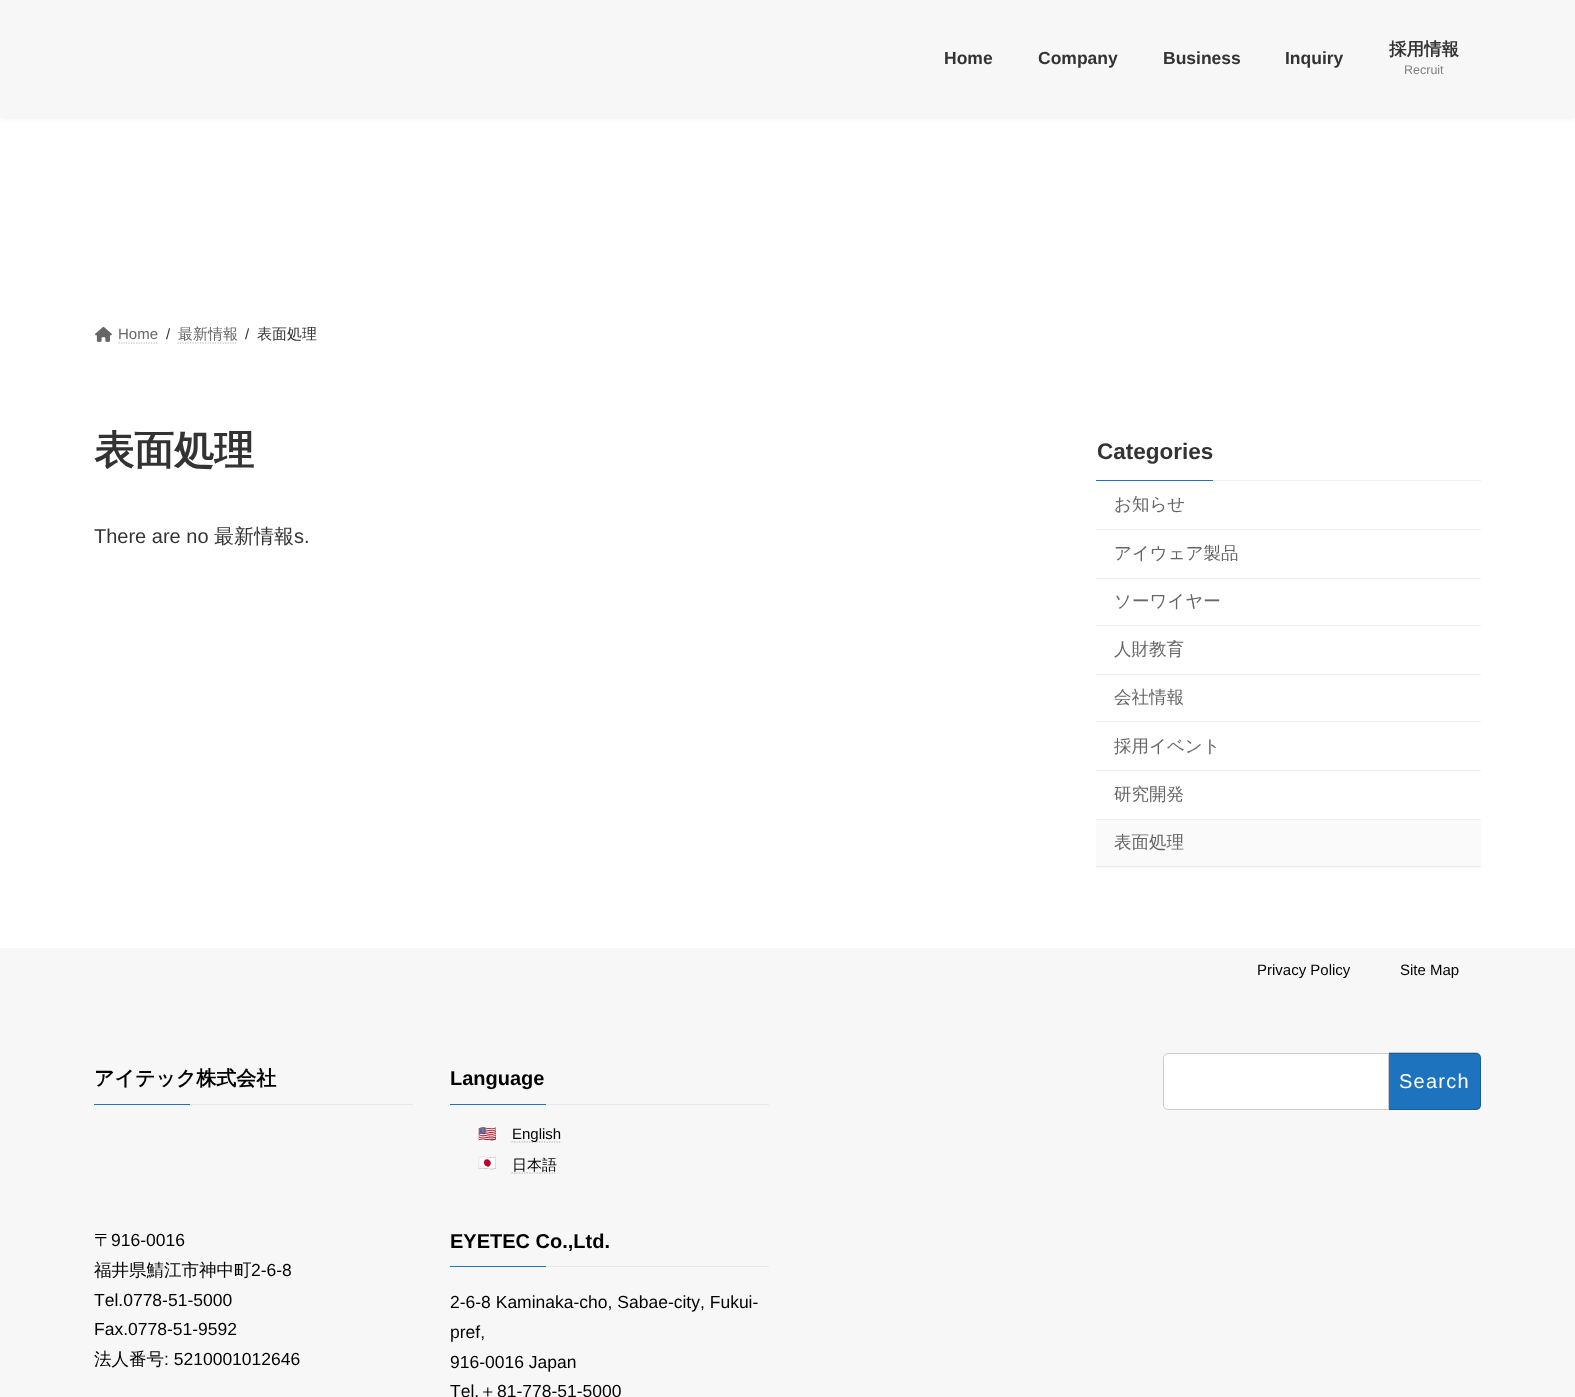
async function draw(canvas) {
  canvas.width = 1575;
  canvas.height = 1397;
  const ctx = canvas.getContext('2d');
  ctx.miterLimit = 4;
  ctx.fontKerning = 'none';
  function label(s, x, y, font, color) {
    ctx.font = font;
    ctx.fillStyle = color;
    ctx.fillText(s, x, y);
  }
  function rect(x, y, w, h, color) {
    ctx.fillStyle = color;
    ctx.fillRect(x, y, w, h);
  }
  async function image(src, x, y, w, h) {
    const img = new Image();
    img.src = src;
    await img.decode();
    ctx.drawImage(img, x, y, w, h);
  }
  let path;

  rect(0, 0, 1575, 1397, '#fff');
  ctx.fillStyle = '#0000000d';
  ctx.filter = 'blur(2px)';
  ctx.beginPath();
  ctx.rect(0, 1, 1575, 118);
  ctx.fill();
  ctx.filter = 'none';
  rect(0, 0, 1575, 117, '#f7f7f7');
  label('Home', 944, 64, 'bold 17.5px Liberation Sans', '#333');
  label('Company', 1038, 64, 'bold 17.5px Liberation Sans', '#333');
  label('Business', 1163, 64, 'bold 17.5px Liberation Sans', '#333');
  label('Inquiry', 1285, 64, 'bold 17.5px Liberation Sans', '#333');
  label('採用情報', 1389, 55, 'bold 17.5px WenQuanYi Zen Hei', '#333');
  label('Recruit', 1404, 74, '12.5px Liberation Sans', '#818181');
  await image('assets/img1.png', 95, 326, 17, 16);
  label('Home', 118, 339, '15px Liberation Sans', '#666');
  path = new Path2D('M118.5 343H158.5');
  ctx.strokeStyle = '#b3b3b3';
  ctx.lineWidth = 1.2;
  ctx.setLineDash([1.25, 1.25]);
  ctx.stroke(path);
  label('/', 166, 339, '15px Liberation Sans', '#333');
  label('最新情報', 178, 339, '500 15px WenQuanYi Zen Hei', '#666');
  path = new Path2D('M177.5 343H237.5');
  ctx.stroke(path);
  label('/', 245, 339, '15px Liberation Sans', '#333');
  label('表面処理', 257, 339, '500 15px WenQuanYi Zen Hei', '#333');
  label('表面処理', 94, 464, 'bold 40px WenQuanYi Zen Hei', '#333');
  label('There are no', 94, 543, '20px Liberation Sans', '#333');
  label('最新情報', 214, 543, '500 20px WenQuanYi Zen Hei', '#333');
  label('s.', 294, 543, '20px Liberation Sans', '#333');
  rect(1213, 480, 268, 1, '#f0f0f0');
  label('Categories', 1097, 459, 'bold 22.5px Liberation Sans', '#333');
  rect(1096, 480, 117, 1, '#1e73be');
  rect(1096, 529, 385, 1, '#f0f0f0');
  label('お知らせ', 1114, 510, '500 17.5px WenQuanYi Zen Hei', '#666');
  rect(1096, 578, 385, 1, '#f0f0f0');
  label('アイウェア製品', 1114, 559, '500 17.5px WenQuanYi Zen Hei', '#666');
  rect(1096, 625, 385, 1, '#f0f0f0');
  label('ソーワイヤー', 1114, 607, '500 17.5px WenQuanYi Zen Hei', '#666');
  rect(1096, 674, 385, 1, '#f0f0f0');
  label('人財教育', 1114, 655, '500 17.5px WenQuanYi Zen Hei', '#666');
  rect(1096, 721, 385, 1, '#f0f0f0');
  label('会社情報', 1114, 703, '500 17.5px WenQuanYi Zen Hei', '#666');
  rect(1096, 770, 385, 1, '#f0f0f0');
  label('採用イベント', 1114, 752, '500 17.5px WenQuanYi Zen Hei', '#666');
  rect(1096, 819, 385, 1, '#f0f0f0');
  label('研究開発', 1114, 800, '500 17.5px WenQuanYi Zen Hei', '#666');
  rect(1096, 820, 385, 48, '#fafafa');
  rect(1096, 866, 385, 1, '#ebebeb');
  label('表面処理', 1114, 848, '500 17.5px WenQuanYi Zen Hei', '#666');
  rect(0, 948, 1575, 449, '#f7f7f7');
  label('Privacy Policy', 1257, 975, '15px Liberation Sans', '#000');
  label('Site Map', 1400, 975, '15px Liberation Sans', '#000');
  rect(190, 1104, 223, 1, '#e8e8e8');
  label('アイテック株式会社', 94, 1085, 'bold 20px WenQuanYi Zen Hei', '#000');
  rect(94, 1104, 96, 1, '#1e73be');
  label('〒', 94, 1246, '500 17.5px WenQuanYi Zen Hei', '#000');
  label('916-0016', 111, 1246, '17.5px Liberation Sans', '#000');
  label('福井県鯖江市神中町', 94, 1276, '500 17.5px WenQuanYi Zen Hei', '#000');
  label('2-6-8', 251, 1276, '17.5px Liberation Sans', '#000');
  label('Tel.0778-51-5000', 94, 1306, '17.5px Liberation Sans', '#000');
  label('Fax.0778-51-9592', 94, 1335, '17.5px Liberation Sans', '#000');
  label('法人番号', 94, 1365, '500 17.5px WenQuanYi Zen Hei', '#000');
  label(': 5210001012646', 164, 1365, '17.5px Liberation Sans', '#000');
  rect(546, 1104, 223, 1, '#e8e8e8');
  label('Language', 450, 1085, 'bold 20px Liberation Sans', '#000');
  rect(450, 1104, 96, 1, '#1e73be');
  label('🇺🇸', 478, 1139, '15px Noto Color Emoji', '#000');
  path = new Path2D('M511.5 1142H561');
  ctx.strokeStyle = '#adadad';
  ctx.stroke(path);
  label('English', 512, 1139, '15px Liberation Sans', '#000');
  label('🇯🇵', 478, 1168, '15px Noto Color Emoji', '#000');
  label('日本語', 512, 1170, '500 15px WenQuanYi Zen Hei', '#000');
  path = new Path2D('M511.5 1173H556.5');
  ctx.stroke(path);
  rect(546, 1266, 223, 1, '#e8e8e8');
  label('EYETEC Co.,Ltd.', 450, 1248, 'bold 20px Liberation Sans', '#000');
  rect(450, 1266, 96, 1, '#1e73be');
  label('2-6-8 Kaminaka-cho, Sabae-city, Fukui-', 450, 1308, '17.5px Liberation Sans', '#000');
  label('pref,', 450, 1338, '17.5px Liberation Sans', '#000');
  label('916-0016 Japan', 450, 1368, '17.5px Liberation Sans', '#000');
  label('Tel.', 450, 1397, '17.5px Liberation Sans', '#000');
  label('＋', 479, 1397, '500 17.5px WenQuanYi Zen Hei', '#000');
  label('81-778-51-5000', 497, 1397, '17.5px Liberation Sans', '#000');
  ctx.fillStyle = '#fff';
  ctx.beginPath();
  ctx.roundRect(1163, 1053, 226, 57, [5, 0, 0, 5]);
  ctx.fill();
  ctx.beginPath();
  ctx.roundRect(1163.5, 1053.5, 225, 56, [4.5, 0, 0, 4.5]);
  ctx.strokeStyle = '#00000033';
  ctx.lineWidth = 1;
  ctx.setLineDash([]);
  ctx.stroke();
  ctx.fillStyle = '#1e73be';
  ctx.beginPath();
  ctx.roundRect(1389, 1053, 92, 57, [0, 5, 5, 0]);
  ctx.fill();
  ctx.fillStyle = '#00000033';
  path = new Path2D('M1389 1052H1476C1479 1052 1481 1055 1481 1058V1105C1481 1108 1479 1110 1476 1110H1389ZM1389 1054H1476C1478 1054 1480 1055 1480 1058V1105C1480 1107 1478 1109 1476 1109H1389Z');
  ctx.fill(path, 'evenodd');
  ctx.letterSpacing = '1.25px';
  label('Search', 1399, 1088, '20px Liberation Sans', '#fff');
}

draw(document.querySelector('canvas'));
